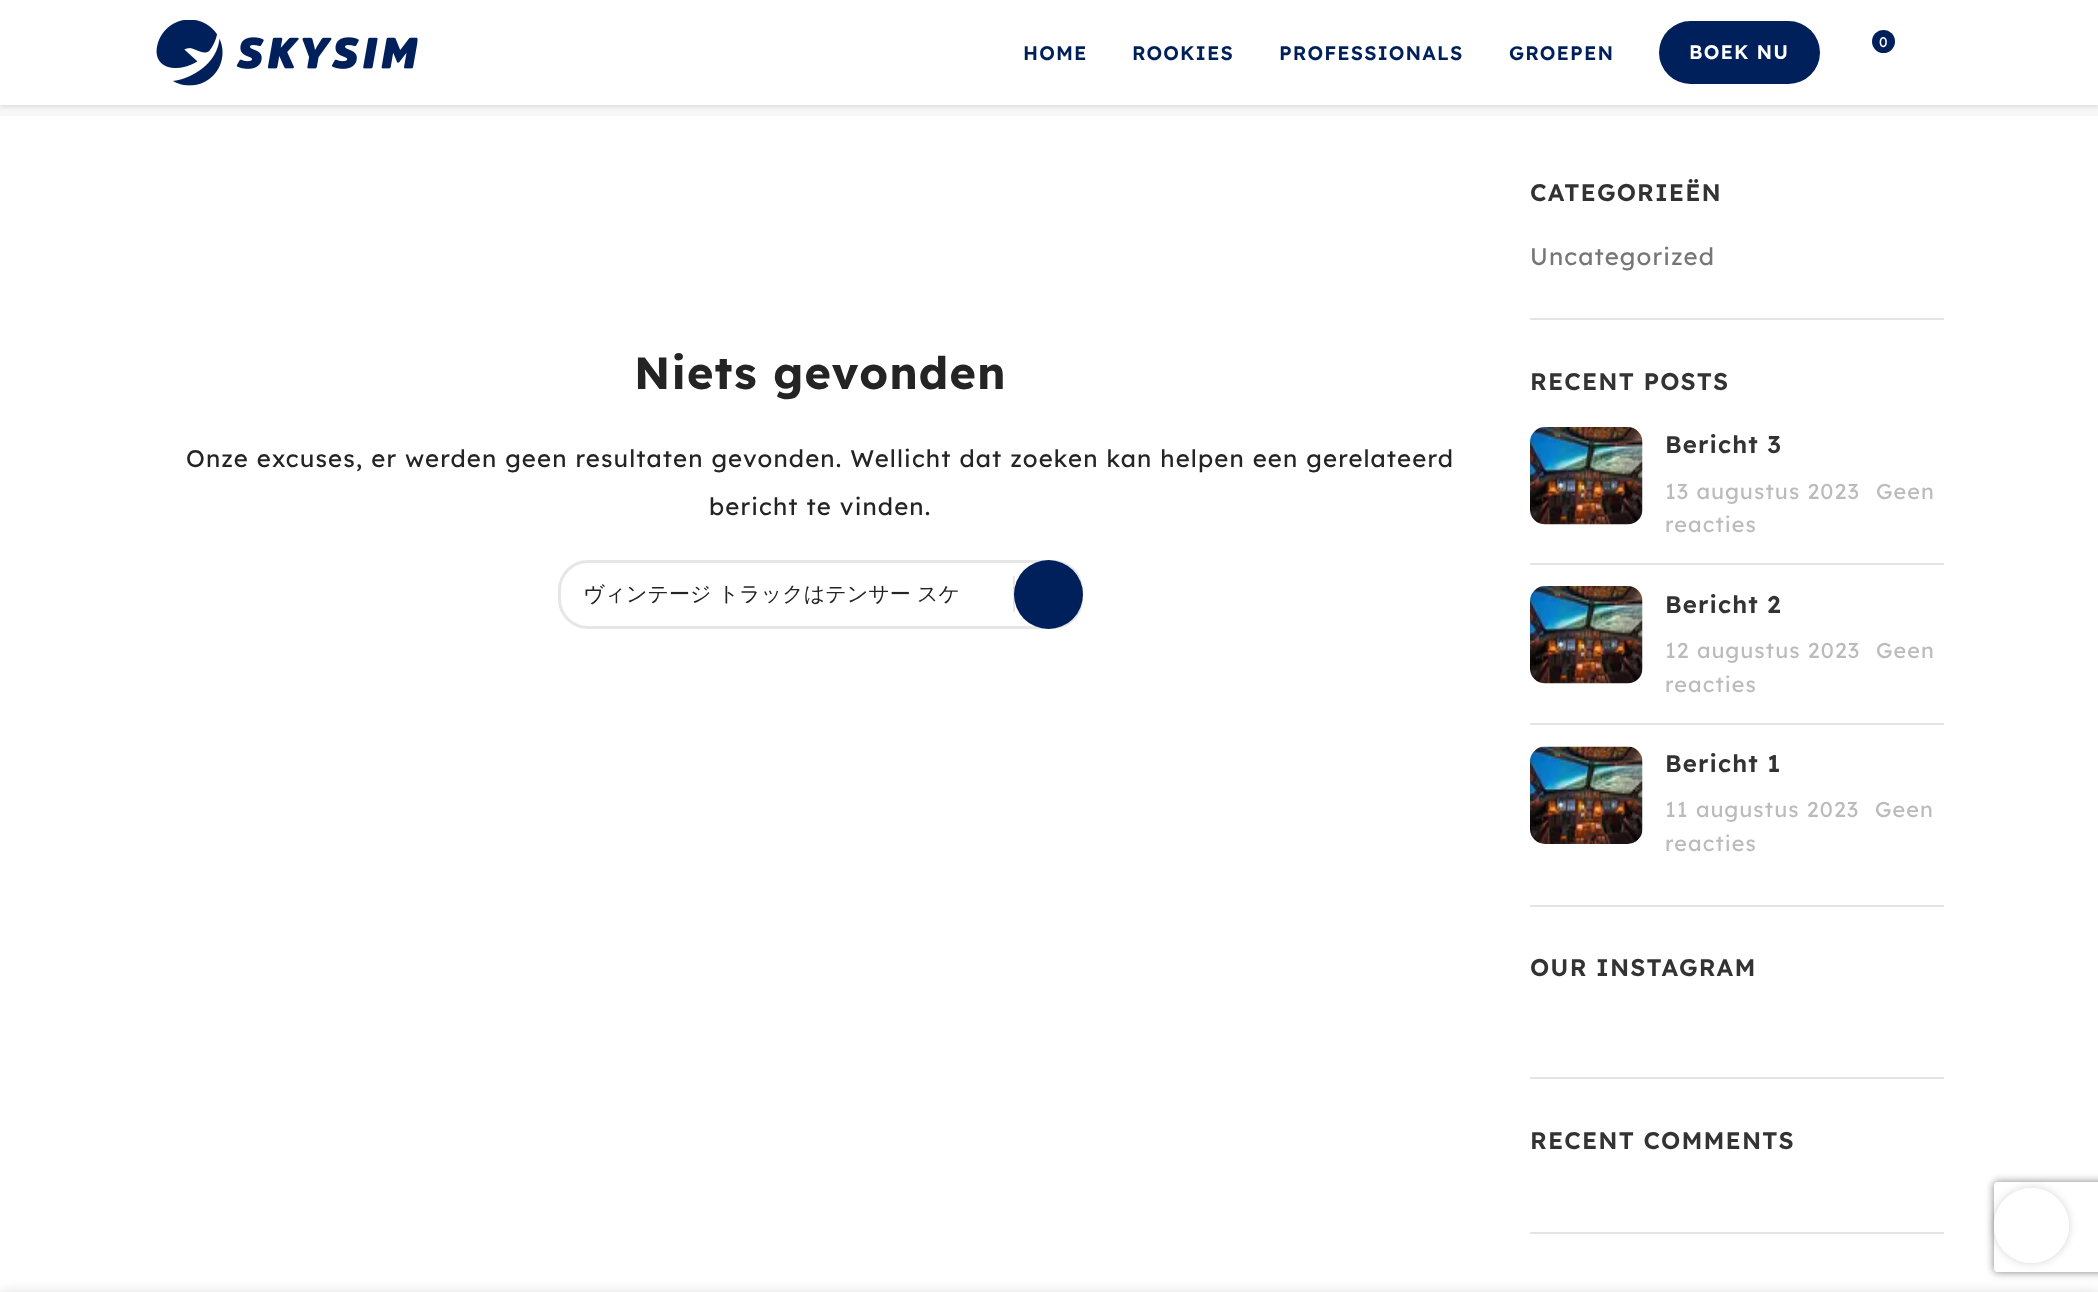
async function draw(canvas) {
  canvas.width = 2098;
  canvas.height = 1292;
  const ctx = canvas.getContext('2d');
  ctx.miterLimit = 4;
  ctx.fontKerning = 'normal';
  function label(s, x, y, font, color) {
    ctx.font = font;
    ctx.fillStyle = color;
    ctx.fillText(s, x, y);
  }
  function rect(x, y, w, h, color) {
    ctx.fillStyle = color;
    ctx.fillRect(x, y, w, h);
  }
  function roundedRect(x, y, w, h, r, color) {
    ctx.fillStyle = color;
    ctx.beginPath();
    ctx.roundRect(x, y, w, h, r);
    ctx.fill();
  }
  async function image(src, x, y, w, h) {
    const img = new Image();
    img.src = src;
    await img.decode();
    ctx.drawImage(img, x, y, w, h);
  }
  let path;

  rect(0, 0, 2098, 1292, '#fff');
  rect(0, 105, 2098, 11, '#f7f7f7');
  ctx.fillStyle = '#0000001a';
  ctx.filter = 'blur(2px)';
  ctx.beginPath();
  ctx.rect(0, 2, 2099, 105);
  ctx.fill();
  ctx.filter = 'none';
  rect(0, 0, 2098, 105, '#fff');
  await image('assets/img1.png', 156, 20, 262, 66);
  ctx.letterSpacing = '1.12px';
  label('HOME', 1023, 60, '600 19.5px Lexend', '#00205b');
  label('ROOKIES', 1132, 60, '600 19.5px Lexend', '#00205b');
  label('PROFESSIONALS', 1279, 60, '600 19.5px Lexend', '#00205b');
  label('GROEPEN', 1509, 60, '600 19.5px Lexend', '#00205b');
  ctx.beginPath();
  ctx.arc(1883.5, 41.5, 11.5, 0, 2 * Math.PI);
  ctx.fill();
  ctx.letterSpacing = '0px';
  label('0', 1879, 47, '14px Lexend', '#fff');
  roundedRect(1659, 21, 161, 63, 31.5, '#00205b');
  ctx.letterSpacing = '1.12px';
  label('BOEK NU', 1689, 59, '600 19.5px Lexend', '#fff');
  label('Niets gevonden', 634, 389, 'bold 45px Lexend', '#242424');
  label('Onze excuses, er werden geen resultaten gevonden. Wellicht dat zoeken kan helpen een gerelateerd', 186, 467, '24px Lexend', '#242424');
  label('bericht te vinden.', 709, 515, '24px Lexend', '#242424');
  ctx.beginPath();
  ctx.roundRect(559.5, 561.5, 522, 66, 28.5);
  ctx.strokeStyle = '#e6e6e6';
  ctx.lineWidth = 3;
  ctx.stroke();
  rect(1013, 576, 2, 36, '#e6e6e6');
  ctx.fillStyle = '#00205b';
  ctx.beginPath();
  ctx.arc(1048.5, 594.5, 34.5, 0, 2 * Math.PI);
  ctx.fill();
  ctx.letterSpacing = '0px';
  label('ヴィンテージ トラックはテンサー スケ', 583, 601, '500 21px WenQuanYi Zen Hei', '#242424');
  rect(1530, 318, 414, 2, '#e4e4e4');
  ctx.letterSpacing = '1.12px';
  label('CATEGORIEËN', 1530, 201, '600 24px Lexend', '#333');
  label('Uncategorized', 1530, 265, '24px Lexend', '#767676');
  rect(1530, 905, 414, 2, '#e4e4e4');
  label('RECENT POSTS', 1530, 390, '600 24px Lexend', '#333');
  rect(1530, 563, 414, 2, '#e4e4e4');
  await image('assets/img2.png', 1530, 427, 113, 98);
  label('Bericht 3', 1665, 453, '600 24px Lexend', '#333');
  label('13 augustus 2023', 1665, 499, '21.5px Lexend', '#bbb');
  label('Geen', 1876, 499, '21.5px Lexend', '#bbb');
  label('reacties', 1665, 532, '21.5px Lexend', '#bbb');
  rect(1530, 723, 414, 2, '#e4e4e4');
  await image('assets/img2.png', 1530, 586, 113, 98);
  label('Bericht 2', 1665, 613, '600 24px Lexend', '#333');
  label('12 augustus 2023', 1665, 658, '21.5px Lexend', '#bbb');
  label('Geen', 1876, 658, '21.5px Lexend', '#bbb');
  label('reacties', 1665, 692, '21.5px Lexend', '#bbb');
  await image('assets/img3.png', 1530, 746, 113, 98);
  label('Bericht 1', 1665, 772, '600 24px Lexend', '#333');
  label('11 augustus 2023', 1665, 817, '21.5px Lexend', '#bbb');
  label('Geen', 1875, 817, '21.5px Lexend', '#bbb');
  label('reacties', 1665, 851, '21.5px Lexend', '#bbb');
  rect(1530, 1077, 414, 2, '#e4e4e4');
  label('OUR INSTAGRAM', 1530, 976, '600 24px Lexend', '#333');
  rect(1530, 1232, 414, 2, '#e4e4e4');
  label('RECENT COMMENTS', 1530, 1149, '600 24px Lexend', '#333');
  ctx.save();
  path = new Path2D('M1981 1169H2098V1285H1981ZM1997 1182H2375C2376.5 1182 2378 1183.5 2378 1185V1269C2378 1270.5 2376.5 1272 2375 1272H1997C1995.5 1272 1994 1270.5 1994 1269V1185C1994 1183.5 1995.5 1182 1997 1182Z');
  ctx.clip(path, 'evenodd');
  ctx.fillStyle = '#808080';
  ctx.filter = 'blur(4px)';
  ctx.beginPath();
  ctx.roundRect(1994, 1182, 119, 90, 3);
  ctx.fill();
  ctx.filter = 'none';
  ctx.restore();
  ctx.save();
  path = new Path2D('M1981 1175H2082V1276H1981ZM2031.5 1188C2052 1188 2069 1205 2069 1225.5C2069 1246 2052 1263 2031.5 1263C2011 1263 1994 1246 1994 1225.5C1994 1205 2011 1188 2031.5 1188Z');
  ctx.clip(path, 'evenodd');
  ctx.fillStyle = '#0000002b';
  ctx.filter = 'blur(4px)';
  ctx.beginPath();
  ctx.roundRect(1994, 1188, 75, 75, 37.5);
  ctx.fill();
  ctx.filter = 'none';
  ctx.restore();
  ctx.fillStyle = '#ffffffe6';
  ctx.beginPath();
  ctx.arc(2031.5, 1225.5, 37.5, 0, 2 * Math.PI);
  ctx.fill();
  ctx.fillStyle = '#00000024';
  ctx.filter = 'blur(7px)';
  ctx.beginPath();
  ctx.rect(0, 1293, 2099, 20);
  ctx.fill();
  ctx.filter = 'none';
}

draw(document.querySelector('canvas'));
